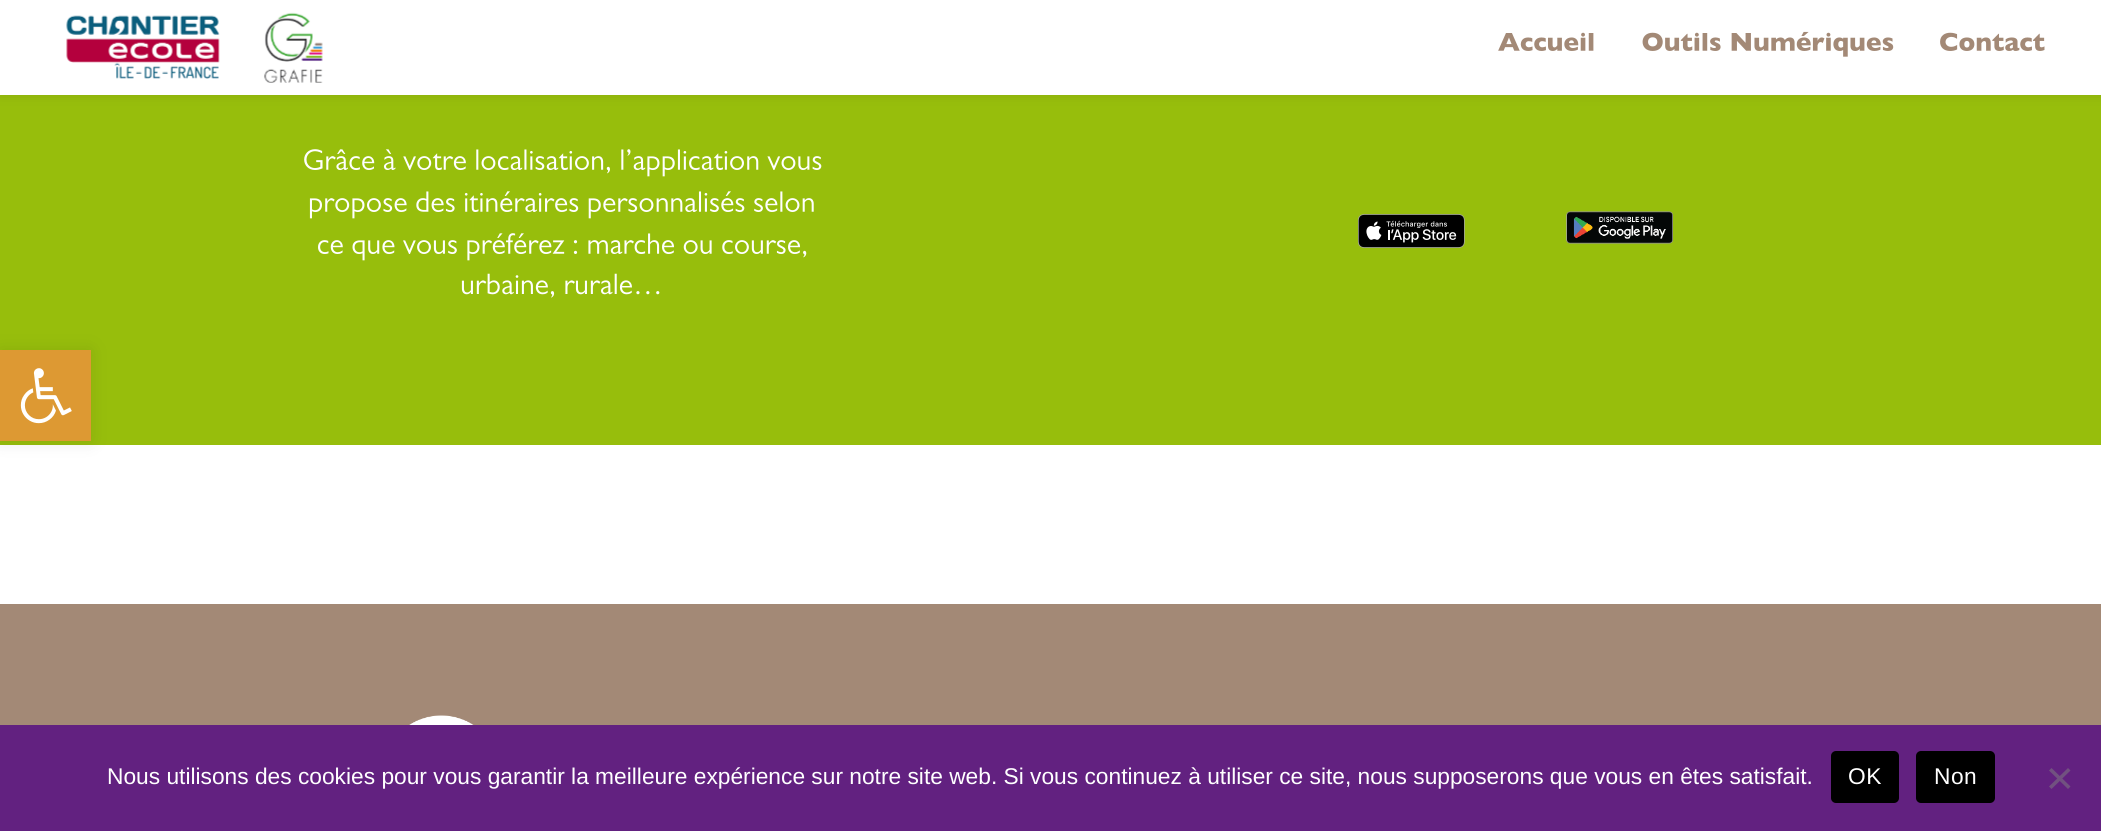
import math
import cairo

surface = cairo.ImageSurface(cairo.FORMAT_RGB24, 2101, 831)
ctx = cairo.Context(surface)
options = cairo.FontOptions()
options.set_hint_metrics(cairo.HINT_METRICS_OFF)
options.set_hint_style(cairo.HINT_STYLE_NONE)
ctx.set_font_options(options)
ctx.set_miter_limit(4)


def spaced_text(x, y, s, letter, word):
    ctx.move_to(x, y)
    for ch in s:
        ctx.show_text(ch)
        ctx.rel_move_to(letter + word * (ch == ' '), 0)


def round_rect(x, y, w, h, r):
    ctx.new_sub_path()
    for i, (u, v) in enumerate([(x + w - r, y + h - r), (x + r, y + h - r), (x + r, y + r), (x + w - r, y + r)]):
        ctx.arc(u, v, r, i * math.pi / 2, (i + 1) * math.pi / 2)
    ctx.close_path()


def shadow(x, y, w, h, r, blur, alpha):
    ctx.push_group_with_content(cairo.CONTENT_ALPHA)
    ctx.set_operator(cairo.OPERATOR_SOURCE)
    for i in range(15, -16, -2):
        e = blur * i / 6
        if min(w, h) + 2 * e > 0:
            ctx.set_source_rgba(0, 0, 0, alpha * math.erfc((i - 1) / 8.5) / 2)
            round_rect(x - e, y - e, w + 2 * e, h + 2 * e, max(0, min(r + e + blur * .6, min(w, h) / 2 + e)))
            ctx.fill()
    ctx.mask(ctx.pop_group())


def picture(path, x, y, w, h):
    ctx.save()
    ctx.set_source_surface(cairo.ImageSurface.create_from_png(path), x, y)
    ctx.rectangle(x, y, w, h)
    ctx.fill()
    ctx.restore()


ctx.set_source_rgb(1, 1, 1)
ctx.paint()
ctx.set_source_rgb(0.592, 0.745, 0.047)
ctx.rectangle(0, 95, 2101, 350)
ctx.fill()
ctx.set_source_rgb(0, 0, 0)
shadow(0, 0, 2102, 95, 0, 6, 0.1)
ctx.set_source_rgb(1, 1, 1)
ctx.rectangle(0, 0, 2101, 95)
ctx.fill()
picture("img1.png", 66, 12, 257, 71)
picture("img2.png", 1498, 32, 96, 19)
picture("img3.png", 1642, 31, 252, 26)
picture("img4.png", 1940, 32, 105, 19)
picture("img5.png", 304, 149, 518, 28)
picture("img6.png", 309, 191, 505, 28)
picture("img7.png", 318, 233, 489, 28)
picture("img8.png", 461, 273, 199, 25)
picture("img9.png", 1358, 214, 107, 34)
picture("img10.png", 1566, 211, 107, 33)
ctx.set_source_rgb(0.639, 0.537, 0.463)
ctx.rectangle(0, 604, 2101, 121)
ctx.fill()
picture("img11.png", 409, 715, 65, 10)
ctx.set_source_rgb(0, 0, 0)
shadow(0, 350, 91, 91, 0, 9, 0.1)
ctx.set_source_rgb(0.867, 0.6, 0.2)
ctx.rectangle(0, 350, 91, 91)
ctx.fill()
picture("img12.png", 20, 368, 52, 56)
ctx.set_source_rgb(0.384, 0.129, 0.502)
ctx.rectangle(0, 725, 2101, 106)
ctx.fill()
ctx.select_font_face("Liberation Sans")
ctx.set_font_size(22.75)
ctx.set_source_rgb(1, 1, 1)
ctx.move_to(107, 784)
ctx.show_text("Nous utilisons des cookies pour vous garantir la meilleure expérience sur notre site web. Si vous continuez à utiliser ce site, nous supposerons que vous en êtes satisfait.")
ctx.set_source_rgb(0, 0, 0)
round_rect(1831, 751, 68, 52, 5)
ctx.fill()
ctx.set_source_rgb(1, 1, 1)
spaced_text(1848, 784, "OK", 0.5, 0)
ctx.set_source_rgb(0, 0, 0)
round_rect(1916, 751, 79, 52, 5)
ctx.fill()
ctx.set_source_rgb(1, 1, 1)
spaced_text(1934, 784, "Non", 0.5, 0)
ctx.set_source_rgb(0.443, 0.318, 0.502)
ctx.new_path()
ctx.move_to(2068, 768)
ctx.line_to(2070.5, 770.5)
ctx.line_to(2051.5, 789)
ctx.line_to(2049, 786.5)
ctx.close_path()
ctx.fill()
ctx.new_path()
ctx.move_to(2049, 770.5)
ctx.line_to(2051.5, 768)
ctx.line_to(2070.5, 786.5)
ctx.line_to(2068, 789)
ctx.close_path()
ctx.fill()
surface.write_to_png("page.png")
